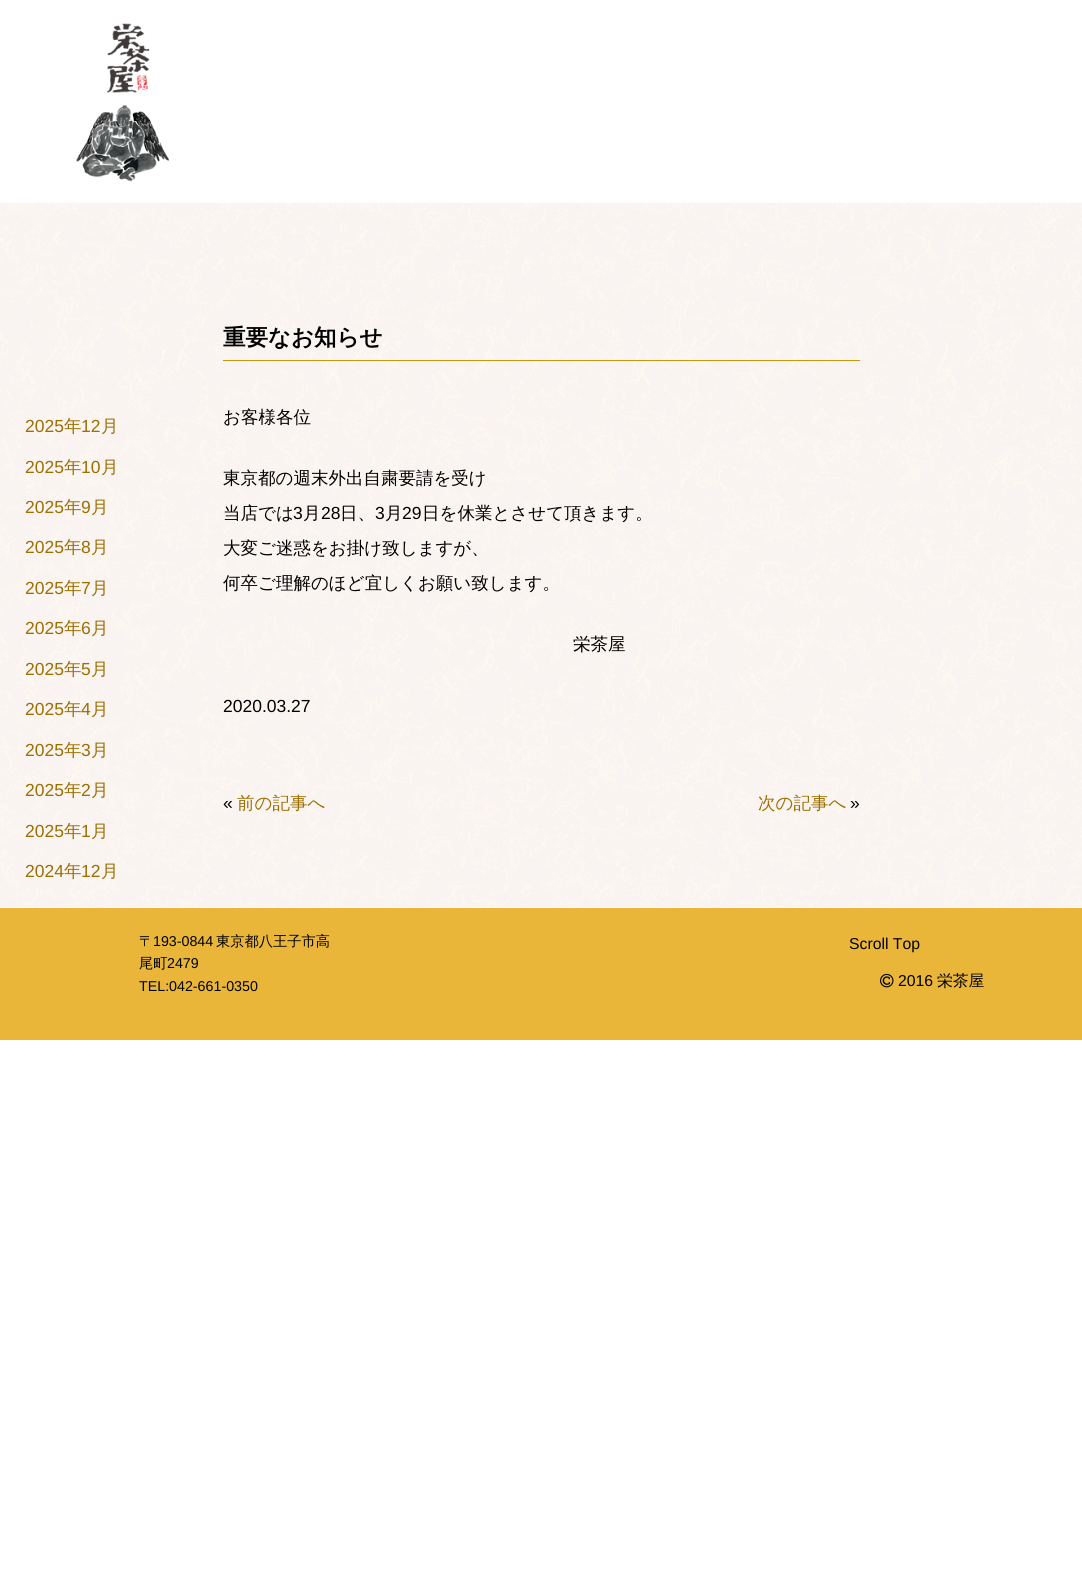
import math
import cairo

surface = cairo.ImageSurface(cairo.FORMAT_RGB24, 1082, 1571)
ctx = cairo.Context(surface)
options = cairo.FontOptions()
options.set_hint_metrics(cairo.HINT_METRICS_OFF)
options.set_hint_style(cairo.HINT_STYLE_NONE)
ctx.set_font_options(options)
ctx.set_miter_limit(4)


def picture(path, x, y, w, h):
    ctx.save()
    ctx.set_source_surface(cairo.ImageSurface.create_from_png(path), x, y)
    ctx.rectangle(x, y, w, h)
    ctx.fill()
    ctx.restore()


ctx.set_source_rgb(1, 1, 1)
ctx.paint()
picture("img1.png", 76, 23, 93, 159)
picture("img2.png", 0, 202, 1082, 706)
ctx.select_font_face("Liberation Sans")
ctx.set_font_size(17.5)
ctx.set_source_rgb(0.616, 0.435, 0.004)
ctx.move_to(25, 432)
ctx.show_text("2025")
ctx.select_font_face("WenQuanYi Zen Hei Medium")
ctx.move_to(64, 432)
ctx.show_text("年")
ctx.select_font_face("Liberation Sans")
ctx.move_to(81, 432)
ctx.show_text("12")
ctx.select_font_face("WenQuanYi Zen Hei Medium")
ctx.move_to(101, 432)
ctx.show_text("月")
ctx.select_font_face("Liberation Sans")
ctx.move_to(25, 473)
ctx.show_text("2025")
ctx.select_font_face("WenQuanYi Zen Hei Medium")
ctx.move_to(64, 473)
ctx.show_text("年")
ctx.select_font_face("Liberation Sans")
ctx.move_to(81, 473)
ctx.show_text("10")
ctx.select_font_face("WenQuanYi Zen Hei Medium")
ctx.move_to(101, 473)
ctx.show_text("月")
ctx.select_font_face("Liberation Sans")
ctx.move_to(25, 513)
ctx.show_text("2025")
ctx.select_font_face("WenQuanYi Zen Hei Medium")
ctx.move_to(64, 513)
ctx.show_text("年")
ctx.select_font_face("Liberation Sans")
ctx.move_to(81, 513)
ctx.show_text("9")
ctx.select_font_face("WenQuanYi Zen Hei Medium")
ctx.move_to(91, 513)
ctx.show_text("月")
ctx.select_font_face("Liberation Sans")
ctx.move_to(25, 553)
ctx.show_text("2025")
ctx.select_font_face("WenQuanYi Zen Hei Medium")
ctx.move_to(64, 553)
ctx.show_text("年")
ctx.select_font_face("Liberation Sans")
ctx.move_to(81, 553)
ctx.show_text("8")
ctx.select_font_face("WenQuanYi Zen Hei Medium")
ctx.move_to(91, 553)
ctx.show_text("月")
ctx.select_font_face("Liberation Sans")
ctx.move_to(25, 594)
ctx.show_text("2025")
ctx.select_font_face("WenQuanYi Zen Hei Medium")
ctx.move_to(64, 594)
ctx.show_text("年")
ctx.select_font_face("Liberation Sans")
ctx.move_to(81, 594)
ctx.show_text("7")
ctx.select_font_face("WenQuanYi Zen Hei Medium")
ctx.move_to(91, 594)
ctx.show_text("月")
ctx.select_font_face("Liberation Sans")
ctx.move_to(25, 634)
ctx.show_text("2025")
ctx.select_font_face("WenQuanYi Zen Hei Medium")
ctx.move_to(64, 634)
ctx.show_text("年")
ctx.select_font_face("Liberation Sans")
ctx.move_to(81, 634)
ctx.show_text("6")
ctx.select_font_face("WenQuanYi Zen Hei Medium")
ctx.move_to(91, 634)
ctx.show_text("月")
ctx.select_font_face("Liberation Sans")
ctx.move_to(25, 675)
ctx.show_text("2025")
ctx.select_font_face("WenQuanYi Zen Hei Medium")
ctx.move_to(64, 675)
ctx.show_text("年")
ctx.select_font_face("Liberation Sans")
ctx.move_to(81, 675)
ctx.show_text("5")
ctx.select_font_face("WenQuanYi Zen Hei Medium")
ctx.move_to(91, 675)
ctx.show_text("月")
ctx.select_font_face("Liberation Sans")
ctx.move_to(25, 715)
ctx.show_text("2025")
ctx.select_font_face("WenQuanYi Zen Hei Medium")
ctx.move_to(64, 715)
ctx.show_text("年")
ctx.select_font_face("Liberation Sans")
ctx.move_to(81, 715)
ctx.show_text("4")
ctx.select_font_face("WenQuanYi Zen Hei Medium")
ctx.move_to(91, 715)
ctx.show_text("月")
ctx.select_font_face("Liberation Sans")
ctx.move_to(25, 756)
ctx.show_text("2025")
ctx.select_font_face("WenQuanYi Zen Hei Medium")
ctx.move_to(64, 756)
ctx.show_text("年")
ctx.select_font_face("Liberation Sans")
ctx.move_to(81, 756)
ctx.show_text("3")
ctx.select_font_face("WenQuanYi Zen Hei Medium")
ctx.move_to(91, 756)
ctx.show_text("月")
ctx.select_font_face("Liberation Sans")
ctx.move_to(25, 796)
ctx.show_text("2025")
ctx.select_font_face("WenQuanYi Zen Hei Medium")
ctx.move_to(64, 796)
ctx.show_text("年")
ctx.select_font_face("Liberation Sans")
ctx.move_to(81, 796)
ctx.show_text("2")
ctx.select_font_face("WenQuanYi Zen Hei Medium")
ctx.move_to(91, 796)
ctx.show_text("月")
ctx.select_font_face("Liberation Sans")
ctx.move_to(25, 837)
ctx.show_text("2025")
ctx.select_font_face("WenQuanYi Zen Hei Medium")
ctx.move_to(64, 837)
ctx.show_text("年")
ctx.select_font_face("Liberation Sans")
ctx.move_to(81, 837)
ctx.show_text("1")
ctx.select_font_face("WenQuanYi Zen Hei Medium")
ctx.move_to(91, 837)
ctx.show_text("月")
ctx.select_font_face("Liberation Sans")
ctx.move_to(25, 877)
ctx.show_text("2024")
ctx.select_font_face("WenQuanYi Zen Hei Medium")
ctx.move_to(64, 877)
ctx.show_text("年")
ctx.select_font_face("Liberation Sans")
ctx.move_to(81, 877)
ctx.show_text("12")
ctx.select_font_face("WenQuanYi Zen Hei Medium")
ctx.move_to(101, 877)
ctx.show_text("月")
ctx.set_source_rgb(0.788, 0.592, 0.063)
ctx.rectangle(223, 360, 637, 1)
ctx.fill()
ctx.select_font_face("WenQuanYi Zen Hei", cairo.FONT_SLANT_NORMAL, cairo.FONT_WEIGHT_BOLD)
ctx.set_font_size(22.5)
ctx.set_source_rgb(0, 0, 0)
ctx.move_to(223, 345)
ctx.show_text("重要なお知らせ")
ctx.select_font_face("WenQuanYi Zen Hei Medium")
ctx.set_font_size(17.5)
ctx.move_to(223, 423)
ctx.show_text("お客様各位")
ctx.move_to(223, 484)
ctx.show_text("東京都の週末外出自粛要請を受け")
ctx.move_to(223, 519)
ctx.show_text("当店では")
ctx.select_font_face("Liberation Sans")
ctx.move_to(293, 519)
ctx.show_text("3")
ctx.select_font_face("WenQuanYi Zen Hei Medium")
ctx.move_to(303, 519)
ctx.show_text("月")
ctx.select_font_face("Liberation Sans")
ctx.move_to(321, 519)
ctx.show_text("28")
ctx.select_font_face("WenQuanYi Zen Hei Medium")
ctx.move_to(340, 519)
ctx.show_text("日、")
ctx.select_font_face("Liberation Sans")
ctx.move_to(375, 519)
ctx.show_text("3")
ctx.select_font_face("WenQuanYi Zen Hei Medium")
ctx.move_to(385, 519)
ctx.show_text("月")
ctx.select_font_face("Liberation Sans")
ctx.move_to(402, 519)
ctx.show_text("29")
ctx.select_font_face("WenQuanYi Zen Hei Medium")
ctx.move_to(422, 519)
ctx.show_text("日を休業とさせて頂きます。")
ctx.move_to(223, 554)
ctx.show_text("大変ご迷惑をお掛け致しますが、")
ctx.move_to(223, 589)
ctx.show_text("何卒ご理解のほど宜しくお願い致します。")
ctx.move_to(573, 650)
ctx.show_text("栄茶屋")
ctx.select_font_face("Liberation Sans")
ctx.move_to(223, 712)
ctx.show_text("2020.03.27")
ctx.move_to(223, 809)
ctx.show_text("«")
ctx.select_font_face("WenQuanYi Zen Hei Medium")
ctx.set_source_rgb(0.616, 0.435, 0.004)
ctx.move_to(237, 809)
ctx.show_text("前の記事へ")
ctx.move_to(758, 809)
ctx.show_text("次の記事へ")
ctx.select_font_face("Liberation Sans")
ctx.set_source_rgb(0, 0, 0)
ctx.move_to(850, 809)
ctx.show_text("»")
ctx.set_source_rgb(0.914, 0.714, 0.227)
ctx.rectangle(0, 908, 1082, 132)
ctx.fill()
ctx.select_font_face("WenQuanYi Zen Hei Medium")
ctx.set_font_size(14.25)
ctx.set_source_rgb(0, 0, 0)
ctx.move_to(139, 946)
ctx.show_text("〒")
ctx.select_font_face("Liberation Sans")
ctx.move_to(153, 946)
ctx.show_text("193-0844")
ctx.select_font_face("WenQuanYi Zen Hei Medium")
ctx.move_to(216, 946)
ctx.show_text("東京都八王子市高")
ctx.move_to(139, 968)
ctx.show_text("尾町")
ctx.select_font_face("Liberation Sans")
ctx.move_to(167, 968)
ctx.show_text("2479")
ctx.move_to(139, 991)
ctx.show_text("TEL:042-661-0350")
ctx.set_font_size(15.75)
ctx.move_to(849, 949)
ctx.show_text("Scroll Top")
picture("img3.png", 880, 973, 14, 15)
ctx.move_to(898, 986)
ctx.show_text("2016")
ctx.select_font_face("WenQuanYi Zen Hei Medium")
ctx.move_to(937, 986)
ctx.show_text("栄茶屋")
surface.write_to_png("page.png")
